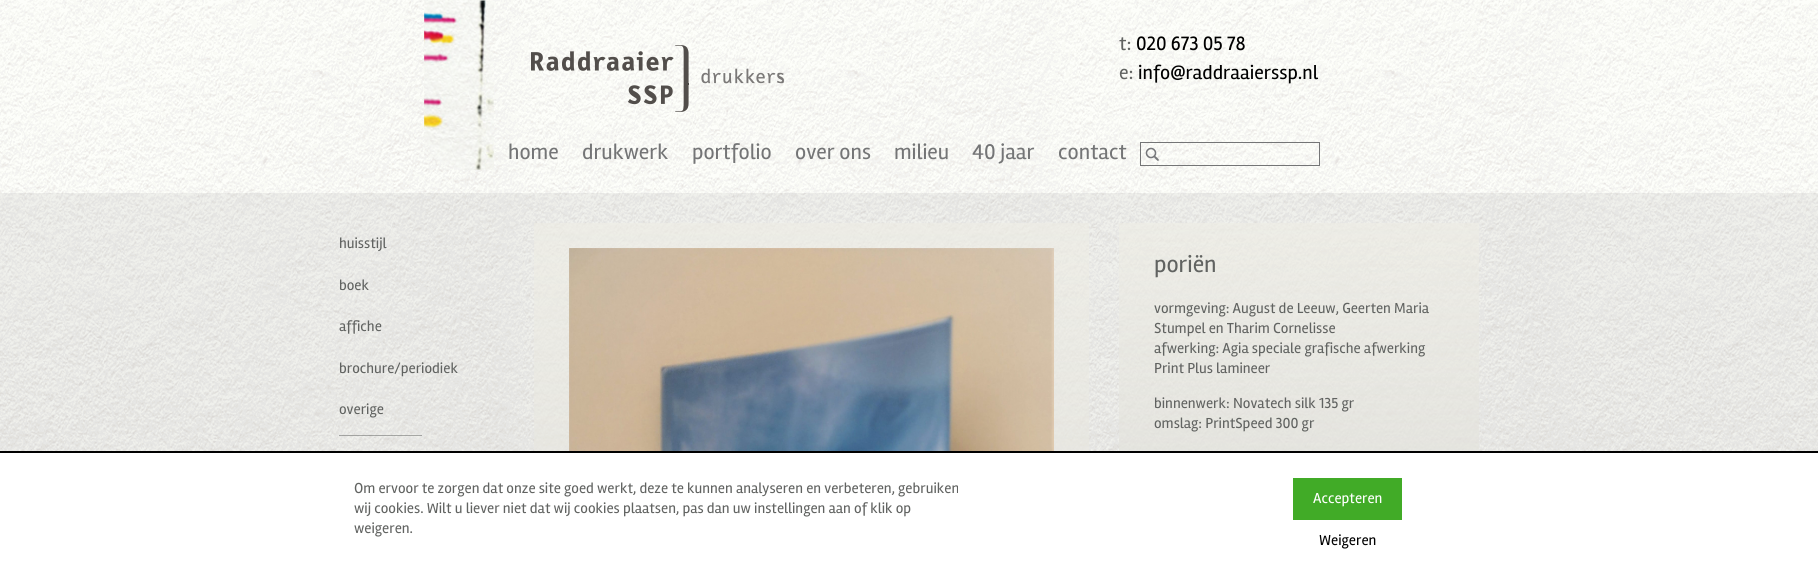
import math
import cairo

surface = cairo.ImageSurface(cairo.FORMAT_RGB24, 1818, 576)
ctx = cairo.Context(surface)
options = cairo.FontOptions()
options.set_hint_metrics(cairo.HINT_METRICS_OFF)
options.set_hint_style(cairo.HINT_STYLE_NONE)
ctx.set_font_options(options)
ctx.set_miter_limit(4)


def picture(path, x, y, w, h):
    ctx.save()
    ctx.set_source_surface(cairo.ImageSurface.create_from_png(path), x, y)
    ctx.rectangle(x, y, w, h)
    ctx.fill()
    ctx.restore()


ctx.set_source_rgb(1, 1, 1)
ctx.paint()
picture("img1.png", 0, 0, 1818, 451)
picture("img2.png", 424, 0, 70, 170)
picture("img3.png", 531, 45, 253, 67)
ctx.select_font_face("Rambla")
ctx.set_font_size(20)
ctx.set_source_rgb(0.38, 0.388, 0.38)
ctx.move_to(1119, 50)
ctx.show_text("t:")
ctx.set_source_rgb(0, 0, 0)
ctx.move_to(1136, 50)
ctx.show_text("020 673 05 78")
ctx.set_source_rgb(0.38, 0.388, 0.38)
ctx.move_to(1119, 79)
ctx.show_text("e:")
ctx.set_source_rgb(0, 0, 0)
ctx.move_to(1138, 79)
ctx.show_text("info@raddraaierssp.nl")
ctx.set_font_size(22)
ctx.set_source_rgb(0.455, 0.459, 0.463)
ctx.move_to(508, 159)
ctx.show_text("home")
ctx.move_to(582, 159)
ctx.show_text("drukwerk")
ctx.move_to(692, 159)
ctx.show_text("portfolio")
ctx.move_to(795, 159)
ctx.show_text("over ons")
ctx.move_to(894, 159)
ctx.show_text("milieu")
ctx.move_to(972, 159)
ctx.show_text("40 jaar")
ctx.move_to(1058, 159)
ctx.show_text("contact")
ctx.rectangle(1140.5, 142.5, 179, 23)
ctx.set_line_width(1)
ctx.stroke()
picture("img4.png", 1145, 147, 14, 14)
ctx.set_source_rgba(0.455, 0.459, 0.463, 0.1)
ctx.rectangle(0, 193, 1818, 258)
ctx.fill()
ctx.set_font_size(15)
ctx.set_source_rgb(0.38, 0.388, 0.38)
ctx.move_to(339, 248)
ctx.show_text("huisstijl")
ctx.move_to(339, 290)
ctx.show_text("boek")
ctx.move_to(339, 331)
ctx.show_text("affiche")
ctx.move_to(339, 373)
ctx.show_text("brochure/periodiek")
ctx.move_to(339, 414)
ctx.show_text("overige")
ctx.set_source_rgba(0.38, 0.388, 0.38, 0.5)
ctx.rectangle(339, 435, 83, 1)
ctx.fill()
gradient = cairo.LinearGradient(812, 223, 812, 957)
gradient.add_color_stop_rgba(0, 0.933, 0.929, 0.898, 0.65)
gradient.add_color_stop_rgba(1, 0.855, 0.855, 0.839, 0.85)
ctx.set_source(gradient)
ctx.rectangle(534, 223, 555, 228)
ctx.fill()
picture("img5.png", 569, 248, 485, 203)
gradient = cairo.LinearGradient(1299, 223, 1299, 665)
gradient.add_color_stop_rgba(0, 0.933, 0.929, 0.898, 0.65)
gradient.add_color_stop_rgba(1, 0.855, 0.855, 0.839, 0.85)
ctx.set_source(gradient)
ctx.rectangle(1119, 223, 360, 228)
ctx.fill()
ctx.set_font_size(24)
ctx.set_source_rgb(0.38, 0.388, 0.38)
ctx.move_to(1154, 272)
ctx.show_text("poriën")
ctx.set_font_size(15)
ctx.move_to(1154, 313)
ctx.show_text("vormgeving: August de Leeuw, Geerten Maria")
ctx.move_to(1154, 333)
ctx.show_text("Stumpel en Tharim Cornelisse")
ctx.move_to(1154, 353)
ctx.show_text("afwerking: Agia speciale grafische afwerking")
ctx.move_to(1154, 373)
ctx.show_text("Print Plus lamineer")
ctx.move_to(1154, 408)
ctx.show_text("binnenwerk: Novatech silk 135 gr")
ctx.move_to(1154, 428)
ctx.show_text("omslag: PrintSpeed 300 gr")
ctx.set_source_rgb(0, 0, 0)
ctx.rectangle(0, 451, 1818, 2)
ctx.fill()
ctx.set_source_rgb(0.38, 0.388, 0.38)
ctx.move_to(354, 493)
ctx.show_text("Om ervoor te zorgen dat onze site goed werkt, deze te kunnen analyseren en verbeteren, gebruiken")
ctx.move_to(354, 513)
ctx.show_text("wij cookies. Wilt u liever niet dat wij cookies plaatsen, pas dan uw instellingen aan of klik op")
ctx.move_to(354, 533)
ctx.show_text("weigeren.")
ctx.set_source_rgb(0.255, 0.671, 0.153)
ctx.rectangle(1293, 478, 109, 42)
ctx.fill()
ctx.set_source_rgb(1, 1, 1)
ctx.move_to(1313, 503)
ctx.show_text("Accepteren")
ctx.set_source_rgb(0, 0, 0)
ctx.move_to(1319, 545)
ctx.show_text("Weigeren")
surface.write_to_png("page.png")
